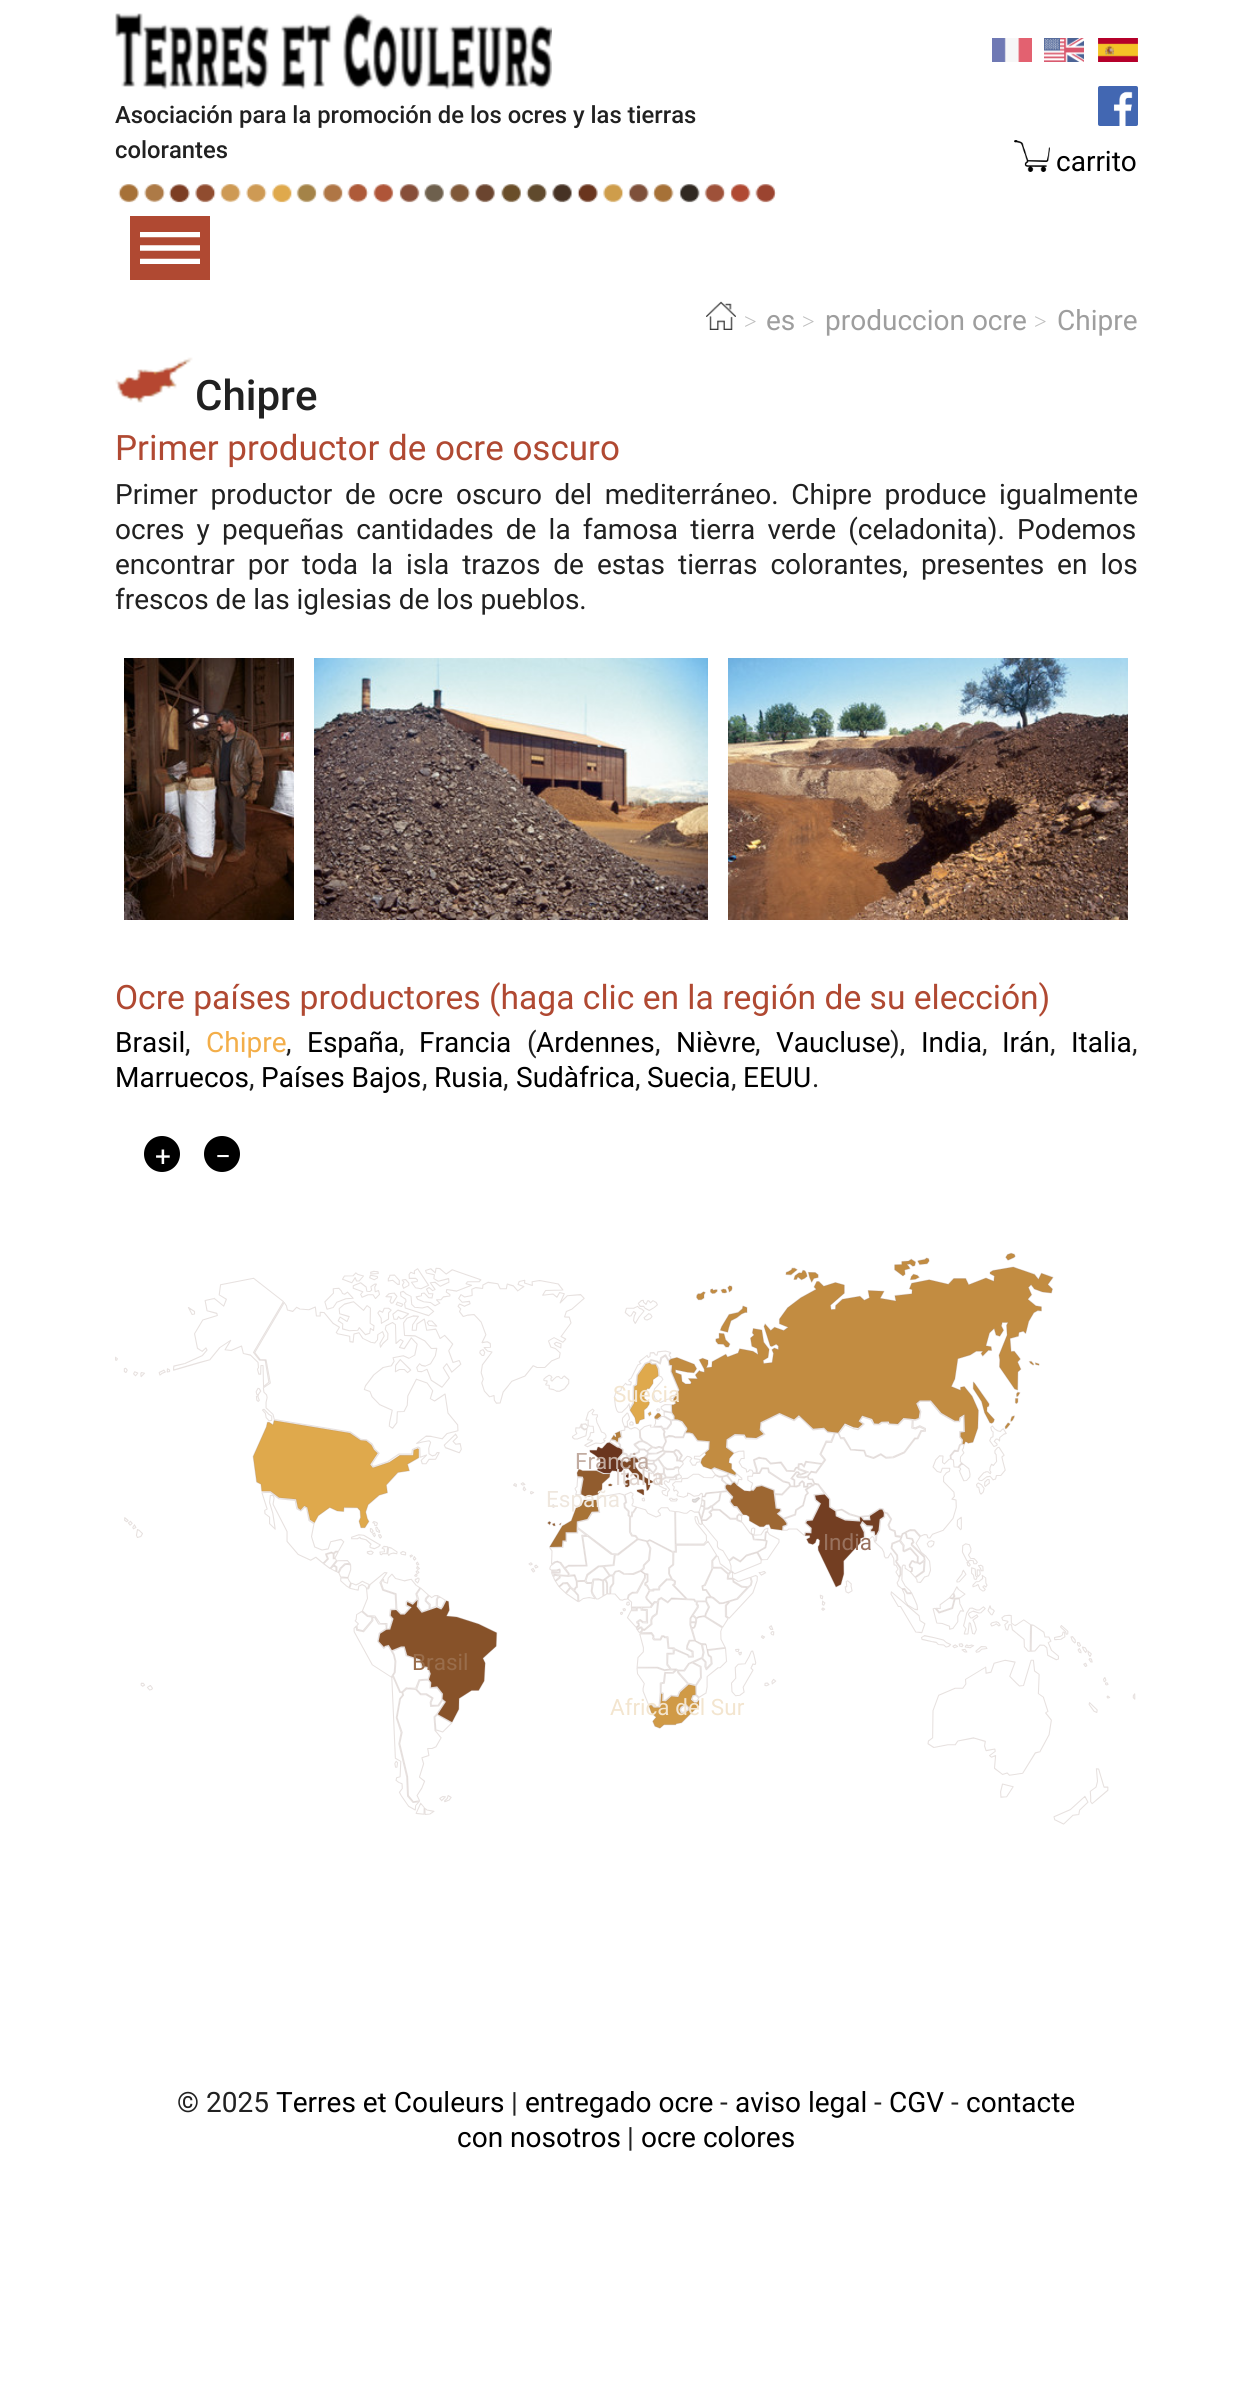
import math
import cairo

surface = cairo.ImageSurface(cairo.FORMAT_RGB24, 1251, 2406)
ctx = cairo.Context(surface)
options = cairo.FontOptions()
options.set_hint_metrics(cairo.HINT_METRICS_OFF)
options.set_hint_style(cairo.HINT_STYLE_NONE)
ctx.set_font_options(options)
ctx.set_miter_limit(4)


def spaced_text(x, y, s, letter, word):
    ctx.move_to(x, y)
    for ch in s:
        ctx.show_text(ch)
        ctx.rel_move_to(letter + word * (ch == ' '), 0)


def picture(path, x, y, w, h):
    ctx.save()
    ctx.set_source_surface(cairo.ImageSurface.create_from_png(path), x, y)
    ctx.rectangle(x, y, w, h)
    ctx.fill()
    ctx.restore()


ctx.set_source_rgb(1, 1, 1)
ctx.paint()
picture("img1.png", 115, 13, 437, 77)
ctx.select_font_face("Roboto Medium")
ctx.set_font_size(23.8)
ctx.set_source_rgb(0.129, 0.129, 0.129)
ctx.move_to(115, 123)
ctx.show_text("Asociación para la promoción de los ocres y las tierras")
ctx.move_to(115, 158)
ctx.show_text("colorantes")
picture("img2.png", 118, 184, 659, 19)
picture("img3.png", 992, 38, 40, 24)
picture("img4.png", 1044, 38, 40, 24)
picture("img5.png", 1098, 38, 40, 24)
picture("img6.png", 1098, 86, 40, 40)
picture("img7.png", 1014, 140, 36, 32)
ctx.select_font_face("Roboto")
ctx.set_font_size(28)
ctx.set_source_rgb(0, 0, 0)
ctx.move_to(1056, 171)
ctx.show_text("carrito")
ctx.set_source_rgb(0.69, 0.286, 0.196)
ctx.rectangle(130, 216, 80, 64)
ctx.fill()
picture("img8.png", 140, 232, 60, 32)
picture("img9.png", 706, 301, 30, 29)
ctx.select_font_face("Liberation Serif")
ctx.set_font_size(22.5)
ctx.set_source_rgb(0.741, 0.741, 0.741)
ctx.move_to(744, 329)
ctx.show_text(">")
ctx.select_font_face("Roboto")
ctx.set_font_size(28)
ctx.set_source_rgb(0.62, 0.62, 0.62)
ctx.move_to(766, 330)
ctx.show_text("es")
ctx.select_font_face("Liberation Serif")
ctx.set_font_size(22.5)
ctx.set_source_rgb(0.741, 0.741, 0.741)
ctx.move_to(802, 329)
ctx.show_text(">")
ctx.select_font_face("Roboto")
ctx.set_font_size(28)
ctx.set_source_rgb(0.62, 0.62, 0.62)
ctx.move_to(825, 330)
ctx.show_text("produccion ocre")
ctx.select_font_face("Liberation Serif")
ctx.set_font_size(22.5)
ctx.set_source_rgb(0.741, 0.741, 0.741)
ctx.move_to(1034, 329)
ctx.show_text(">")
ctx.select_font_face("Roboto")
ctx.set_font_size(28)
ctx.set_source_rgb(0.62, 0.62, 0.62)
ctx.move_to(1057, 330)
ctx.show_text("Chipre")
picture("img10.png", 115, 357, 78, 46)
ctx.select_font_face("Roboto Medium")
ctx.set_font_size(42)
ctx.set_source_rgb(0.129, 0.129, 0.129)
ctx.move_to(195, 410)
ctx.show_text("Chipre")
ctx.select_font_face("Roboto")
ctx.set_font_size(35)
ctx.set_source_rgb(0.69, 0.286, 0.196)
ctx.move_to(115, 460)
ctx.show_text("Primer productor de ocre oscuro")
ctx.set_font_size(28)
ctx.set_source_rgb(0.129, 0.129, 0.129)
spaced_text(115, 504, "Primer productor de ocre oscuro del mediterráneo. Chipre produce igualmente", 0, 5.75)
spaced_text(115, 539, "ocres y pequeñas cantidades de la famosa tierra verde (celadonita). Podemos", 0, 5.25)
spaced_text(115, 574, "encontrar por toda la isla trazos de estas tierras colorantes, presentes en los", 0, 6)
ctx.move_to(115, 609)
ctx.show_text("frescos de las iglesias de los pueblos.")
picture("img11.png", 124, 658, 170, 262)
picture("img12.png", 314, 658, 394, 262)
picture("img13.png", 728, 658, 400, 262)
ctx.set_font_size(33.6)
ctx.set_source_rgb(0.69, 0.286, 0.196)
ctx.move_to(115, 1009)
ctx.show_text("Ocre países productores (haga clic en la región de su elección)")
ctx.set_font_size(28)
ctx.set_source_rgb(0, 0, 0)
ctx.move_to(115, 1052)
ctx.show_text("Brasil")
ctx.set_source_rgb(0.129, 0.129, 0.129)
ctx.move_to(185, 1052)
ctx.show_text(",")
ctx.set_source_rgb(0.953, 0.682, 0.286)
ctx.move_to(206, 1052)
ctx.show_text("Chipre")
ctx.set_source_rgb(0.129, 0.129, 0.129)
ctx.move_to(286, 1052)
ctx.show_text(",")
ctx.set_source_rgb(0, 0, 0)
ctx.move_to(307, 1052)
ctx.show_text("España")
ctx.set_source_rgb(0.129, 0.129, 0.129)
ctx.move_to(399, 1052)
ctx.show_text(",")
ctx.set_source_rgb(0, 0, 0)
ctx.move_to(419, 1052)
ctx.show_text("Francia")
ctx.set_source_rgb(0.129, 0.129, 0.129)
ctx.move_to(527, 1052)
ctx.show_text("(")
ctx.set_source_rgb(0, 0, 0)
ctx.move_to(536, 1052)
ctx.show_text("Ardennes")
ctx.set_source_rgb(0.129, 0.129, 0.129)
ctx.move_to(655, 1052)
ctx.show_text(",")
ctx.set_source_rgb(0, 0, 0)
ctx.move_to(676, 1052)
ctx.show_text("Nièvre")
ctx.set_source_rgb(0.129, 0.129, 0.129)
ctx.move_to(755, 1052)
ctx.show_text(",")
ctx.set_source_rgb(0, 0, 0)
ctx.move_to(776, 1052)
ctx.show_text("Vaucluse")
ctx.set_source_rgb(0.129, 0.129, 0.129)
ctx.move_to(890, 1052)
ctx.show_text("),")
ctx.set_source_rgb(0, 0, 0)
ctx.move_to(921, 1052)
ctx.show_text("India")
ctx.set_source_rgb(0.129, 0.129, 0.129)
ctx.move_to(982, 1052)
ctx.show_text(",")
ctx.set_source_rgb(0, 0, 0)
ctx.move_to(1002, 1052)
ctx.show_text("Irán")
ctx.set_source_rgb(0.129, 0.129, 0.129)
ctx.move_to(1050, 1052)
ctx.show_text(",")
ctx.set_source_rgb(0, 0, 0)
ctx.move_to(1071, 1052)
ctx.show_text("Italia")
ctx.set_source_rgb(0.129, 0.129, 0.129)
ctx.move_to(1132, 1052)
ctx.show_text(",")
ctx.set_source_rgb(0, 0, 0)
ctx.move_to(115, 1087)
ctx.show_text("Marruecos")
ctx.set_source_rgb(0.129, 0.129, 0.129)
ctx.move_to(249, 1087)
ctx.show_text(",")
ctx.set_source_rgb(0, 0, 0)
ctx.move_to(261, 1087)
ctx.show_text("Países Bajos")
ctx.set_source_rgb(0.129, 0.129, 0.129)
ctx.move_to(422, 1087)
ctx.show_text(",")
ctx.set_source_rgb(0, 0, 0)
ctx.move_to(434, 1087)
ctx.show_text("Rusia")
ctx.set_source_rgb(0.129, 0.129, 0.129)
ctx.move_to(503, 1087)
ctx.show_text(",")
ctx.set_source_rgb(0, 0, 0)
ctx.move_to(516, 1087)
ctx.show_text("Sudàfrica")
ctx.set_source_rgb(0.129, 0.129, 0.129)
ctx.move_to(635, 1087)
ctx.show_text(",")
ctx.set_source_rgb(0, 0, 0)
ctx.move_to(647, 1087)
ctx.show_text("Suecia")
ctx.set_source_rgb(0.129, 0.129, 0.129)
ctx.move_to(731, 1087)
ctx.show_text(",")
ctx.set_source_rgb(0, 0, 0)
ctx.move_to(743, 1087)
ctx.show_text("EEUU")
ctx.set_source_rgb(0.129, 0.129, 0.129)
ctx.move_to(812, 1087)
ctx.show_text(".")
ctx.set_source_rgb(0, 0, 0)
ctx.new_path()
ctx.arc(162, 1154, 18, 0, 2 * math.pi)
ctx.fill()
ctx.set_source_rgb(1, 1, 1)
ctx.move_to(155, 1166)
ctx.show_text("+")
ctx.set_source_rgb(0, 0, 0)
ctx.new_path()
ctx.arc(222, 1154, 18, 0, 2 * math.pi)
ctx.fill()
ctx.set_source_rgb(1, 1, 1)
ctx.move_to(215, 1166)
ctx.show_text("−")
picture("img14.png", 115, 1252, 1021, 573)
ctx.set_font_size(22.5)
ctx.set_source_rgb(0.953, 0.898, 0.812)
ctx.move_to(613, 1402)
ctx.show_text("Suecia")
ctx.set_source_rgb(0.757, 0.671, 0.627)
ctx.move_to(575, 1469)
ctx.show_text("Francia")
ctx.set_source_rgb(0.882, 0.835, 0.812)
ctx.move_to(615, 1485)
ctx.show_text("Italia")
ctx.set_source_rgb(0.937, 0.906, 0.871)
ctx.move_to(546, 1507)
ctx.show_text("España")
ctx.set_source_rgb(0.6, 0.447, 0.369)
ctx.move_to(823, 1550)
ctx.show_text("India")
ctx.set_source_rgb(0.6, 0.427, 0.294)
ctx.move_to(412, 1670)
ctx.show_text("Brasil")
ctx.set_source_rgb(0.953, 0.898, 0.812)
ctx.move_to(610, 1715)
ctx.show_text("Africa del Sur")
ctx.set_font_size(28)
ctx.set_source_rgb(0.129, 0.129, 0.129)
ctx.move_to(177, 2112)
ctx.show_text("© 2025")
ctx.set_source_rgb(0, 0, 0)
ctx.move_to(276, 2112)
ctx.show_text("Terres et Couleurs")
ctx.set_source_rgb(0.129, 0.129, 0.129)
ctx.move_to(511, 2112)
ctx.show_text("|")
ctx.set_source_rgb(0, 0, 0)
ctx.move_to(525, 2112)
ctx.show_text("entregado ocre")
ctx.set_source_rgb(0.129, 0.129, 0.129)
ctx.move_to(720, 2112)
ctx.show_text("-")
ctx.set_source_rgb(0, 0, 0)
ctx.move_to(735, 2112)
ctx.show_text("aviso legal")
ctx.set_source_rgb(0.129, 0.129, 0.129)
ctx.move_to(874, 2112)
ctx.show_text("-")
ctx.set_source_rgb(0, 0, 0)
ctx.move_to(889, 2112)
ctx.show_text("CGV")
ctx.set_source_rgb(0.129, 0.129, 0.129)
ctx.move_to(951, 2112)
ctx.show_text("-")
ctx.set_source_rgb(0, 0, 0)
ctx.move_to(966, 2112)
ctx.show_text("contacte")
ctx.move_to(457, 2147)
ctx.show_text("con nosotros")
ctx.set_source_rgb(0.129, 0.129, 0.129)
ctx.move_to(627, 2147)
ctx.show_text("|")
ctx.set_source_rgb(0, 0, 0)
ctx.move_to(641, 2147)
ctx.show_text("ocre colores")
surface.write_to_png("page.png")
